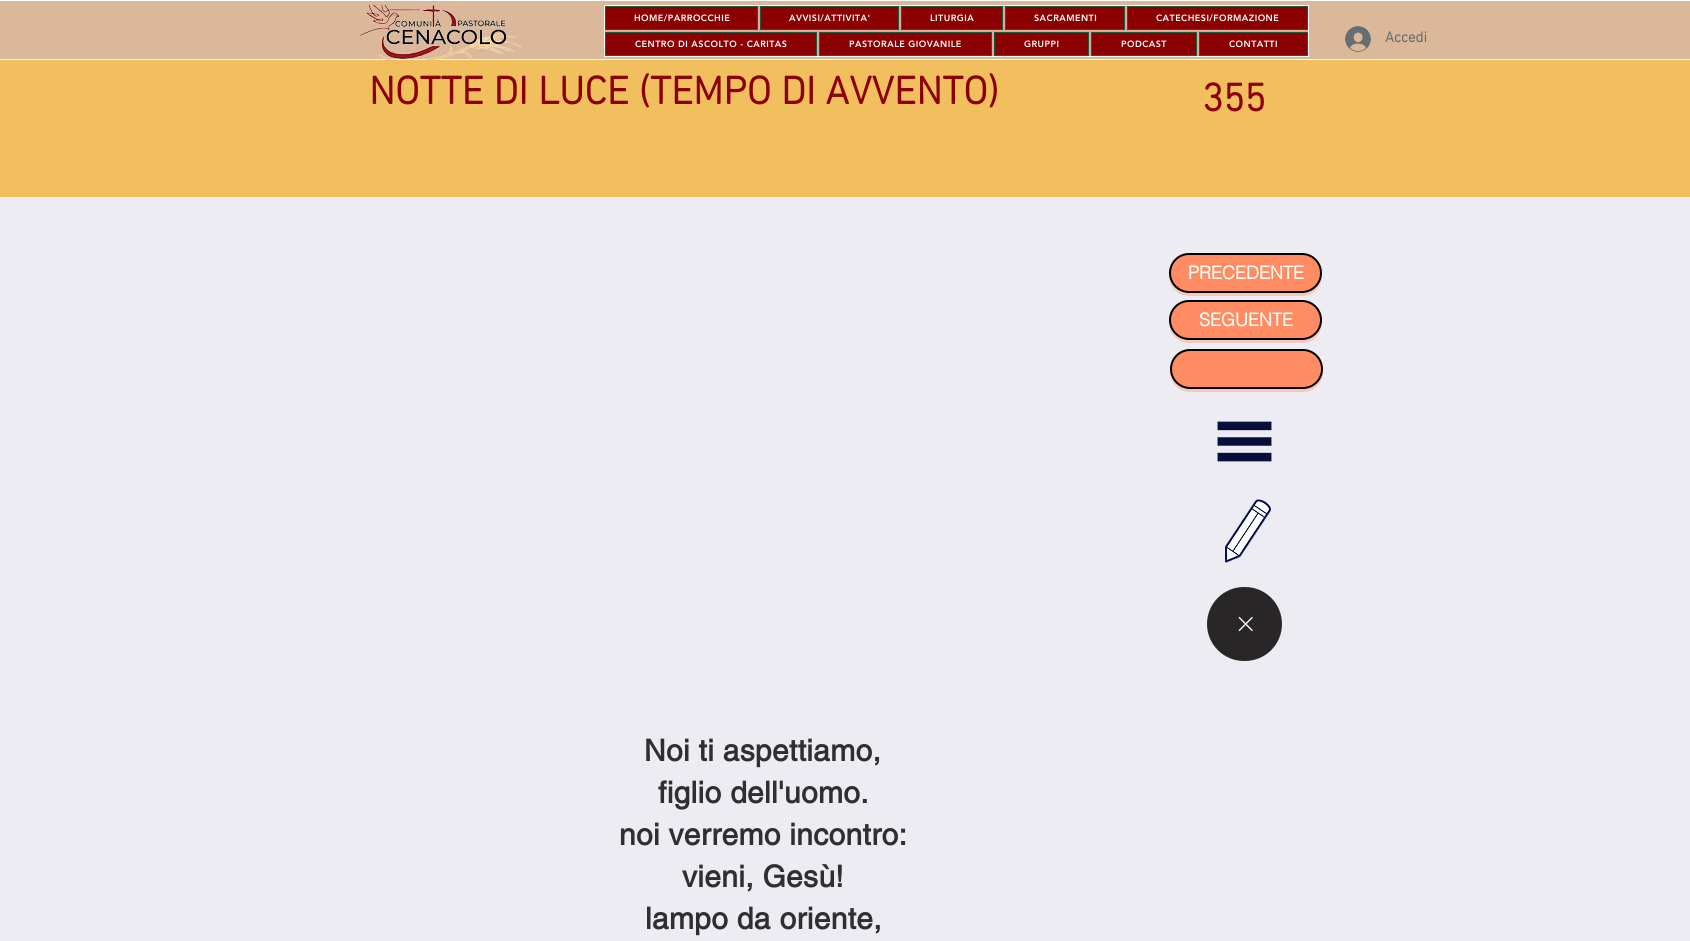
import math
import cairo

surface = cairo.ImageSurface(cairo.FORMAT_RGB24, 1690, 941)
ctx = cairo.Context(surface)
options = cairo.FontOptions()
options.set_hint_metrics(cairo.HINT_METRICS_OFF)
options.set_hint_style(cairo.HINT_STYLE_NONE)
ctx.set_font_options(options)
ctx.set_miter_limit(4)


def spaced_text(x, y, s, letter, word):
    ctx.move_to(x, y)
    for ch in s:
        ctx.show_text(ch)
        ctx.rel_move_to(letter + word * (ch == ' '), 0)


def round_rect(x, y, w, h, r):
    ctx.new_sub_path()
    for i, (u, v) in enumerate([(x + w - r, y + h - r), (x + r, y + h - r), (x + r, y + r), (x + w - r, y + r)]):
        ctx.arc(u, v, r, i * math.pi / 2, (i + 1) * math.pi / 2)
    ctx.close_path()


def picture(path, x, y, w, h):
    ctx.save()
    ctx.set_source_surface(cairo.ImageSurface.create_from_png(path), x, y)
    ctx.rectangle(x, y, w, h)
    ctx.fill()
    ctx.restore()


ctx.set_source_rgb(0.929, 0.922, 0.949)
ctx.paint()
ctx.set_source_rgb(1, 1, 1)
ctx.rectangle(0, 0, 1690, 1)
ctx.fill()
ctx.rectangle(0, 59, 1690, 1)
ctx.fill()
ctx.set_source_rgb(0.859, 0.722, 0.604)
ctx.rectangle(0, 1, 1690, 58)
ctx.fill()
picture("img1.png", 359, 5, 163, 55)
ctx.set_source_rgb(0.859, 0.671, 0.592)
ctx.rectangle(604.5, 5.5, 704, 51)
ctx.fill_preserve()
ctx.set_source_rgb(1, 1, 1)
ctx.set_line_width(1)
ctx.stroke()
ctx.set_source_rgb(0.545, 0, 0)
ctx.rectangle(605.5, 6.5, 152, 23)
ctx.fill_preserve()
ctx.set_source_rgb(0.106, 0.357, 0.247)
ctx.stroke()
ctx.select_font_face("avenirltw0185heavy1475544 Black")
ctx.set_font_size(9)
ctx.set_source_rgb(1, 1, 1)
spaced_text(634, 21, "HOME/PARROCCHIE", 0.45, 0)
ctx.set_source_rgb(0.545, 0, 0)
ctx.rectangle(760.5, 6.5, 138, 23)
ctx.fill_preserve()
ctx.set_source_rgb(0.106, 0.357, 0.247)
ctx.stroke()
ctx.set_source_rgb(1, 1, 1)
spaced_text(789, 21, "AVVISI/ATTIVITA'", 0.45, 0)
ctx.set_source_rgb(0.545, 0, 0)
ctx.rectangle(901.5, 6.5, 101, 23)
ctx.fill_preserve()
ctx.set_source_rgb(0.106, 0.357, 0.247)
ctx.stroke()
ctx.set_source_rgb(1, 1, 1)
spaced_text(930, 21, "LITURGIA", 0.45, 0)
ctx.set_source_rgb(0.545, 0, 0)
ctx.rectangle(1005.5, 6.5, 119, 23)
ctx.fill_preserve()
ctx.set_source_rgb(0.106, 0.357, 0.247)
ctx.stroke()
ctx.set_source_rgb(1, 1, 1)
spaced_text(1034, 21, "SACRAMENTI", 0.45, 0)
ctx.set_source_rgb(0.545, 0, 0)
ctx.rectangle(1127.5, 6.5, 180, 23)
ctx.fill_preserve()
ctx.set_source_rgb(0.106, 0.357, 0.247)
ctx.stroke()
ctx.set_source_rgb(1, 1, 1)
spaced_text(1156, 21, "CATECHESI/FORMAZIONE", 0.45, 0)
ctx.set_source_rgb(0.545, 0, 0)
ctx.rectangle(605.5, 32.5, 211, 23)
ctx.fill_preserve()
ctx.set_source_rgb(0.106, 0.357, 0.247)
ctx.stroke()
ctx.set_source_rgb(1, 1, 1)
spaced_text(635, 47, "CENTRO DI ASCOLTO - CARITAS", 0.45, 0)
ctx.set_source_rgb(0.545, 0, 0)
ctx.rectangle(819.5, 32.5, 172, 23)
ctx.fill_preserve()
ctx.set_source_rgb(0.106, 0.357, 0.247)
ctx.stroke()
ctx.set_source_rgb(1, 1, 1)
spaced_text(849, 47, "PASTORALE GIOVANILE", 0.45, 0)
ctx.set_source_rgb(0.545, 0, 0)
ctx.rectangle(994.5, 32.5, 94, 23)
ctx.fill_preserve()
ctx.set_source_rgb(0.106, 0.357, 0.247)
ctx.stroke()
ctx.set_source_rgb(1, 1, 1)
spaced_text(1024, 47, "GRUPPI", 0.45, 0)
ctx.set_source_rgb(0.545, 0, 0)
ctx.rectangle(1091.5, 32.5, 105, 23)
ctx.fill_preserve()
ctx.set_source_rgb(0.106, 0.357, 0.247)
ctx.stroke()
ctx.set_source_rgb(1, 1, 1)
spaced_text(1121, 47, "PODCAST", 0.45, 0)
ctx.set_source_rgb(0.545, 0, 0)
ctx.rectangle(1199.5, 32.5, 108, 23)
ctx.fill_preserve()
ctx.set_source_rgb(0.106, 0.357, 0.247)
ctx.stroke()
ctx.set_source_rgb(1, 1, 1)
spaced_text(1229, 47, "CONTATTI", 0.45, 0)
picture("img2.png", 1345, 26, 26, 26)
ctx.select_font_face("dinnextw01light", cairo.FONT_SLANT_NORMAL, cairo.FONT_WEIGHT_BOLD)
ctx.set_font_size(15)
ctx.set_source_rgb(0.404, 0.431, 0.443)
ctx.move_to(1385, 42)
ctx.show_text("Accedi")
ctx.set_source_rgb(0.949, 0.749, 0.369)
ctx.rectangle(0, 60, 1690, 137)
ctx.fill()
ctx.set_font_size(40)
ctx.set_source_rgb(0.545, 0, 0)
ctx.move_to(369, 104)
ctx.show_text("NOTTE DI LUCE (TEMPO DI AVVENTO)")
ctx.move_to(1202, 111)
ctx.show_text("355")
ctx.set_source_rgb(0.953, 0.792, 0.753)
ctx.new_path()
ctx.move_to(1169, 274)
ctx.line_to(1169, 276)
ctx.curve_to(1169, 287, 1178, 296, 1189, 296)
ctx.line_to(1302, 296)
ctx.curve_to(1313, 296, 1322, 287, 1322, 276)
ctx.line_to(1322, 274)
ctx.curve_to(1321, 285, 1313, 293, 1302, 293)
ctx.line_to(1189, 293)
ctx.curve_to(1178, 293, 1170, 285, 1169, 274)
ctx.close_path()
ctx.fill()
ctx.set_source_rgb(1, 0.549, 0.384)
round_rect(1170, 254, 151, 38, 19)
ctx.fill_preserve()
ctx.set_source_rgb(0, 0, 0)
ctx.set_line_width(2)
ctx.stroke()
ctx.select_font_face("helvetica", cairo.FONT_SLANT_NORMAL, cairo.FONT_WEIGHT_BOLD)
ctx.set_font_size(18)
ctx.set_source_rgb(1, 1, 1)
ctx.move_to(1188, 279)
ctx.show_text("PRECEDENTE")
ctx.set_source_rgb(0.953, 0.792, 0.753)
ctx.new_path()
ctx.move_to(1169, 322)
ctx.line_to(1169, 323)
ctx.curve_to(1169, 334, 1178, 343, 1189, 343)
ctx.line_to(1302, 343)
ctx.curve_to(1313, 343, 1322, 334, 1322, 323)
ctx.line_to(1322, 322)
ctx.curve_to(1321, 332, 1313, 340, 1302, 340)
ctx.line_to(1189, 340)
ctx.curve_to(1178, 340, 1170, 332, 1169, 322)
ctx.close_path()
ctx.fill()
ctx.set_source_rgb(1, 0.549, 0.384)
round_rect(1170, 301, 151, 38, 19)
ctx.fill_preserve()
ctx.set_source_rgb(0, 0, 0)
ctx.stroke()
ctx.set_source_rgb(1, 1, 1)
ctx.move_to(1199, 326)
ctx.show_text("SEGUENTE")
ctx.set_source_rgb(0.953, 0.792, 0.753)
ctx.new_path()
ctx.move_to(1170, 370)
ctx.line_to(1170, 372)
ctx.curve_to(1170, 383, 1179, 392, 1190, 392)
ctx.line_to(1303, 392)
ctx.curve_to(1314, 392, 1323, 383, 1323, 372)
ctx.line_to(1323, 370)
ctx.curve_to(1322, 381, 1314, 389, 1303, 389)
ctx.line_to(1190, 389)
ctx.curve_to(1179, 389, 1171, 381, 1170, 370)
ctx.close_path()
ctx.fill()
ctx.set_source_rgb(1, 0.549, 0.384)
round_rect(1171, 350, 151, 38, 19)
ctx.fill_preserve()
ctx.set_source_rgb(0, 0, 0)
ctx.stroke()
picture("img3.png", 1217, 421, 55, 41)
picture("img4.png", 1225, 499, 46, 64)
ctx.set_source_rgb(0.157, 0.149, 0.149)
round_rect(1207, 587, 75, 74, 37)
ctx.fill()
picture("img5.png", 1238, 616, 15, 16)
ctx.select_font_face("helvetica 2", cairo.FONT_SLANT_NORMAL, cairo.FONT_WEIGHT_BOLD)
ctx.set_font_size(30)
ctx.set_source_rgb(0.184, 0.184, 0.188)
spaced_text(644, 761, "Noi ti aspettiamo,", 0.3, 0)
spaced_text(658, 803, "figlio dell'uomo.", 0.3, 0)
spaced_text(619, 845, "noi verremo incontro:", 0.3, 0)
spaced_text(682, 887, "vieni, Gesù!", 0.3, 0)
spaced_text(645, 929, "lampo da oriente,", 0.3, 0)
surface.write_to_png("page.png")
